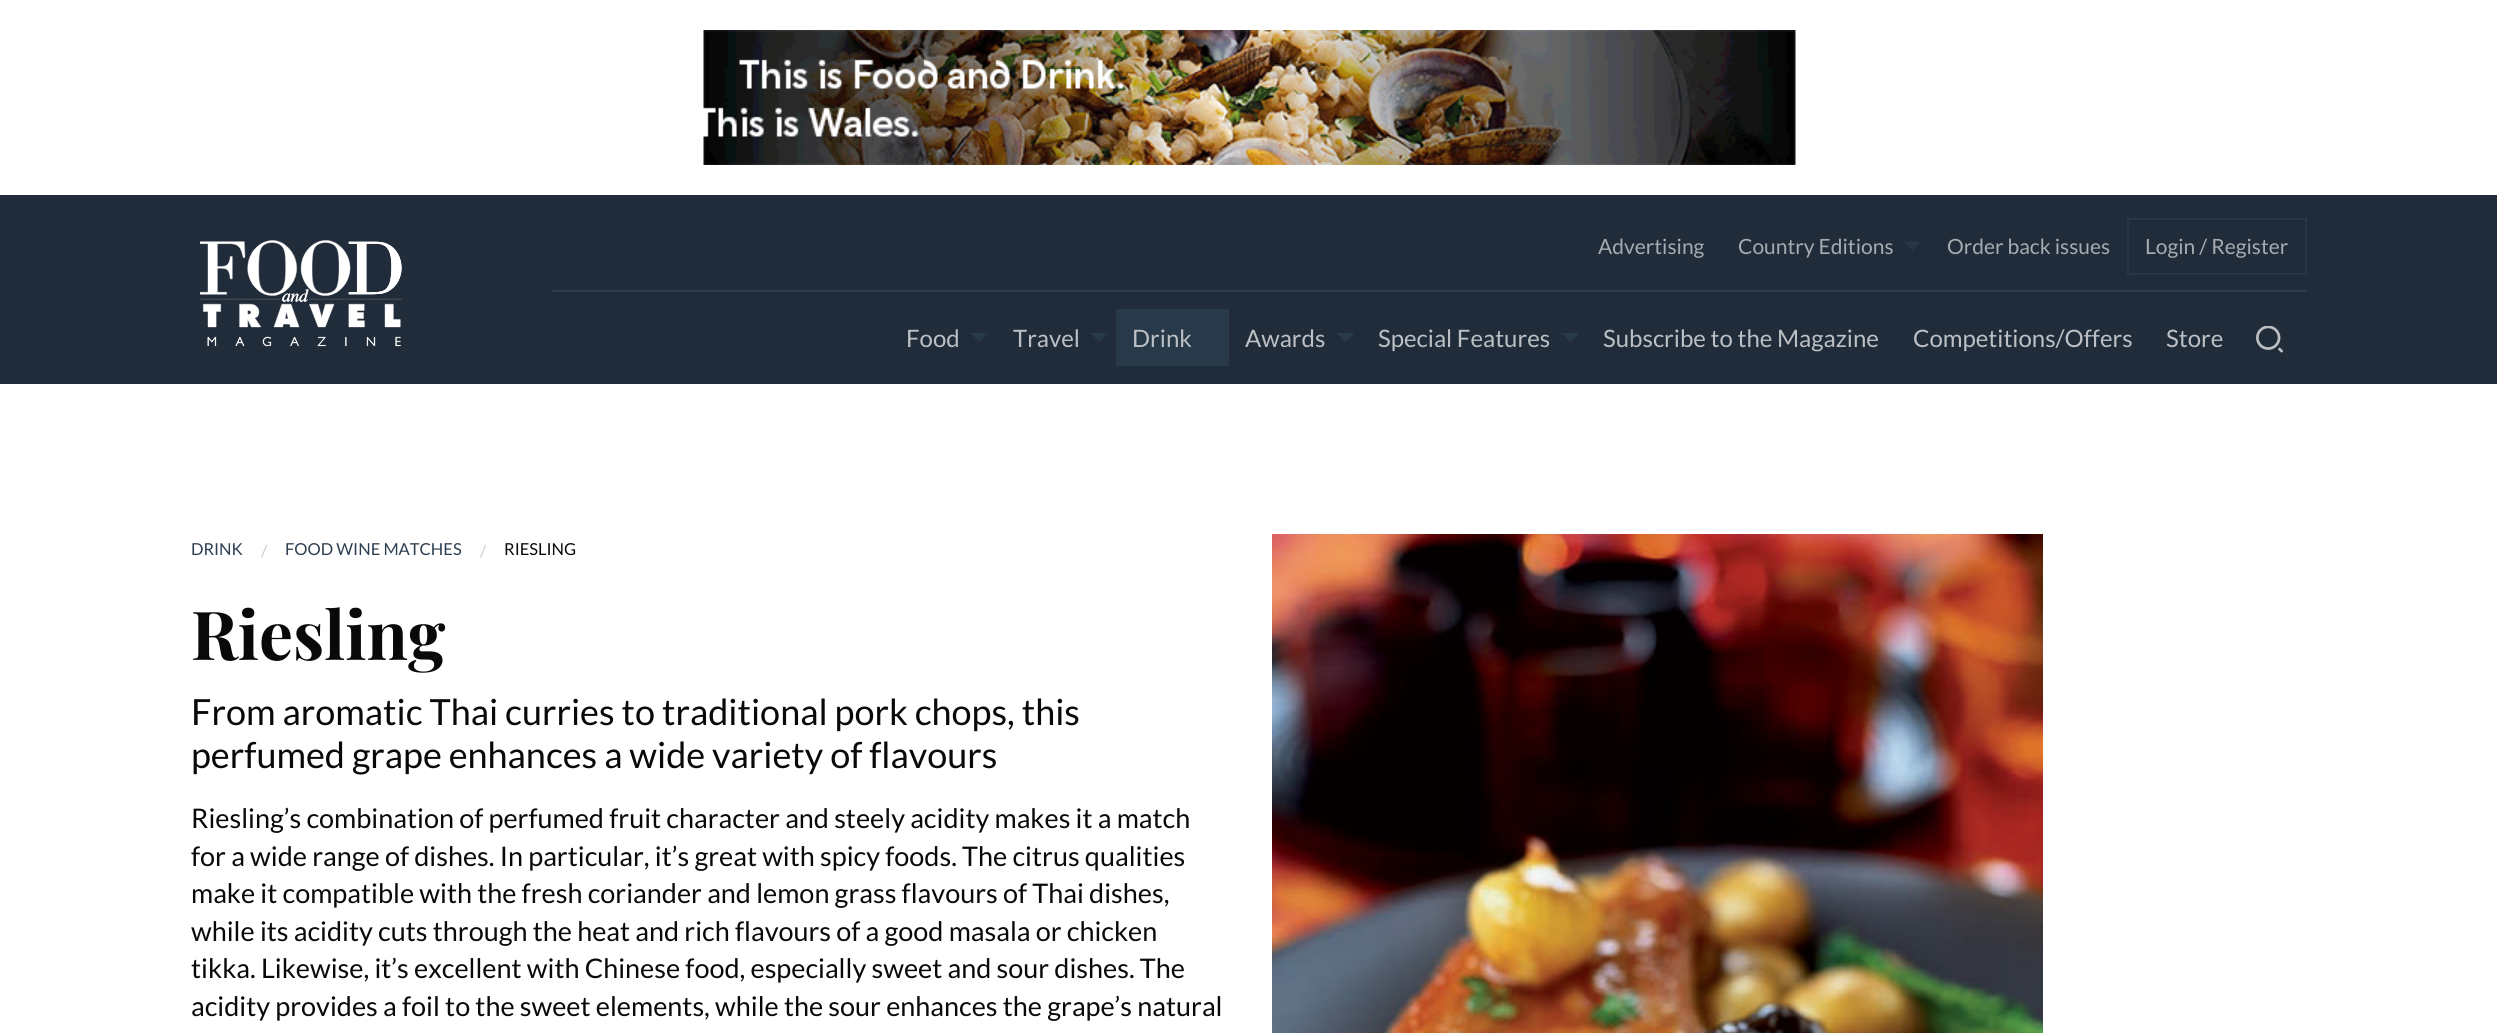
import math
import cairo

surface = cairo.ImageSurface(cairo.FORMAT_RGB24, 2497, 1033)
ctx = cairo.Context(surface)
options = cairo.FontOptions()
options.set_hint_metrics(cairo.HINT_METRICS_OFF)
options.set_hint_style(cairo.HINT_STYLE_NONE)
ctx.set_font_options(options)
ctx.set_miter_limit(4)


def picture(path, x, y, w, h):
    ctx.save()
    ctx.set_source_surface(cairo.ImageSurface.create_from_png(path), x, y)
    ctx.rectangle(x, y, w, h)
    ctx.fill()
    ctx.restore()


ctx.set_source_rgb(1, 1, 1)
ctx.paint()
picture("img1.png", 703, 30, 1093, 135)
ctx.set_source_rgb(0.125, 0.173, 0.227)
ctx.rectangle(0, 195, 2497, 189)
ctx.fill()
picture("img2.png", 200, 240, 202, 107)
ctx.select_font_face("Lato")
ctx.set_font_size(21)
ctx.set_source_rgb(0.651, 0.671, 0.69)
ctx.move_to(1598, 254)
ctx.show_text("Advertising")
ctx.move_to(1738, 254)
ctx.show_text("Country Editions")
ctx.set_source_rgb(0.153, 0.216, 0.278)
ctx.new_path()
ctx.move_to(1903.5, 241.5)
ctx.line_to(1921.5, 241.5)
ctx.line_to(1912.5, 250.5)
ctx.close_path()
ctx.fill()
ctx.set_source_rgb(0.651, 0.671, 0.69)
ctx.move_to(1947, 254)
ctx.show_text("Order back issues")
ctx.rectangle(2128, 219, 178, 55)
ctx.set_source_rgb(0.153, 0.216, 0.278)
ctx.stroke()
ctx.set_source_rgb(0.651, 0.671, 0.69)
ctx.move_to(2145, 254)
ctx.show_text("Login / Register")
ctx.set_source_rgb(0.169, 0.243, 0.314)
ctx.rectangle(552, 290, 1755, 2)
ctx.fill()
ctx.set_font_size(24)
ctx.set_source_rgb(0.737, 0.753, 0.769)
ctx.move_to(906, 347)
ctx.show_text("Food")
ctx.set_source_rgb(0.157, 0.224, 0.286)
ctx.new_path()
ctx.move_to(970.5, 333)
ctx.line_to(988.5, 333)
ctx.line_to(979.5, 342)
ctx.close_path()
ctx.fill()
ctx.set_source_rgb(0.737, 0.753, 0.769)
ctx.move_to(1013, 347)
ctx.show_text("Travel")
ctx.set_source_rgb(0.157, 0.224, 0.286)
ctx.new_path()
ctx.move_to(1090.5, 333)
ctx.line_to(1108.5, 333)
ctx.line_to(1099.5, 342)
ctx.close_path()
ctx.fill()
ctx.rectangle(1116, 309, 113, 57)
ctx.fill()
ctx.set_source_rgb(0.737, 0.753, 0.769)
ctx.move_to(1132, 347)
ctx.show_text("Drink")
ctx.move_to(1245, 347)
ctx.show_text("Awards")
ctx.set_source_rgb(0.157, 0.224, 0.286)
ctx.new_path()
ctx.move_to(1336.5, 333)
ctx.line_to(1354.5, 333)
ctx.line_to(1345.5, 342)
ctx.close_path()
ctx.fill()
ctx.set_source_rgb(0.737, 0.753, 0.769)
ctx.move_to(1378, 347)
ctx.show_text("Special Features")
ctx.set_source_rgb(0.157, 0.224, 0.286)
ctx.new_path()
ctx.move_to(1561.5, 333)
ctx.line_to(1579.5, 333)
ctx.line_to(1570.5, 342)
ctx.close_path()
ctx.fill()
ctx.set_source_rgb(0.737, 0.753, 0.769)
ctx.move_to(1603, 347)
ctx.show_text("Subscribe to the Magazine")
ctx.move_to(1913, 347)
ctx.show_text("Competitions/Offers")
ctx.move_to(2166, 347)
ctx.show_text("Store")
picture("img3.png", 2256, 326, 27, 27)
ctx.set_font_size(16.5)
ctx.set_source_rgb(0.173, 0.243, 0.314)
ctx.move_to(191, 555)
ctx.show_text("DRINK")
ctx.set_source_rgb(0.792, 0.792, 0.792)
ctx.move_to(261, 557)
ctx.show_text("/")
ctx.set_source_rgb(0.173, 0.243, 0.314)
ctx.move_to(285, 555)
ctx.show_text("FOOD WINE MATCHES")
ctx.set_source_rgb(0.792, 0.792, 0.792)
ctx.move_to(480, 557)
ctx.show_text("/")
ctx.set_source_rgb(0.039, 0.039, 0.039)
ctx.move_to(504, 555)
ctx.show_text("RIESLING")
ctx.select_font_face("Playfair Display", cairo.FONT_SLANT_NORMAL, cairo.FONT_WEIGHT_BOLD)
ctx.set_font_size(67.5)
ctx.move_to(191, 660)
ctx.show_text("Riesling")
ctx.select_font_face("Lato")
ctx.set_font_size(36)
ctx.move_to(191, 725)
ctx.show_text("From aromatic Thai curries to traditional pork chops, this")
ctx.move_to(191, 768)
ctx.show_text("perfumed grape enhances a wide variety of flavours")
ctx.set_font_size(27)
ctx.move_to(191, 828)
ctx.show_text("Riesling’s combination of perfumed fruit character and steely acidity makes it a match")
ctx.move_to(191, 866)
ctx.show_text("for a wide range of dishes. In particular, it’s great with spicy foods. The citrus qualities")
ctx.move_to(191, 903)
ctx.show_text("make it compatible with the fresh coriander and lemon grass flavours of Thai dishes,")
ctx.move_to(191, 941)
ctx.show_text("while its acidity cuts through the heat and rich flavours of a good masala or chicken")
ctx.move_to(191, 978)
ctx.show_text("tikka. Likewise, it’s excellent with Chinese food, especially sweet and sour dishes. The")
ctx.move_to(191, 1016)
ctx.show_text("acidity provides a foil to the sweet elements, while the sour enhances the grape’s natural")
picture("img4.png", 1272, 534, 771, 499)
surface.write_to_png("page.png")
